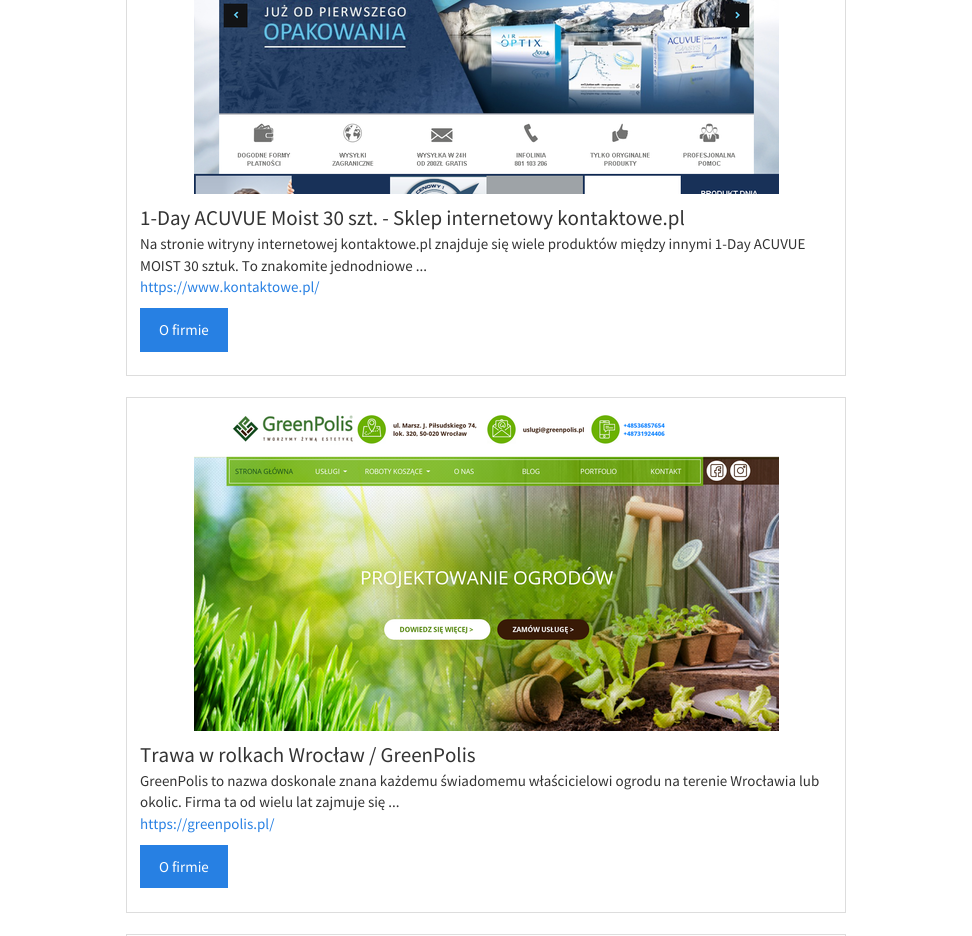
import math
import cairo

surface = cairo.ImageSurface(cairo.FORMAT_RGB24, 972, 936)
ctx = cairo.Context(surface)
options = cairo.FontOptions()
options.set_hint_metrics(cairo.HINT_METRICS_OFF)
options.set_hint_style(cairo.HINT_STYLE_NONE)
ctx.set_font_options(options)
ctx.set_miter_limit(4)


def picture(path, x, y, w, h):
    ctx.save()
    ctx.set_source_surface(cairo.ImageSurface.create_from_png(path), x, y)
    ctx.rectangle(x, y, w, h)
    ctx.fill()
    ctx.restore()


ctx.set_source_rgb(1, 1, 1)
ctx.paint()
ctx.rectangle(126.5, -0.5, 719, 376)
ctx.set_source_rgb(0.867, 0.867, 0.867)
ctx.set_line_width(1)
ctx.stroke()
picture("img1.png", 194, 0, 585, 194)
ctx.select_font_face("Source Sans Pro")
ctx.set_font_size(21)
ctx.set_source_rgb(0.2, 0.2, 0.2)
ctx.move_to(140, 225)
ctx.show_text("1-Day ACUVUE Moist 30 szt. - Sklep internetowy kontaktowe.pl")
ctx.set_font_size(15)
ctx.move_to(140, 249)
ctx.show_text("Na stronie witryny internetowej kontaktowe.pl znajduje się wiele produktów między innymi 1-Day ACUVUE")
ctx.move_to(140, 271)
ctx.show_text("MOIST 30 sztuk. To znakomite jednodniowe ...")
ctx.set_source_rgb(0.153, 0.502, 0.89)
ctx.move_to(140, 292)
ctx.show_text("https://www.kontaktowe.pl/")
ctx.rectangle(140, 308, 88, 44)
ctx.fill()
ctx.set_source_rgb(1, 1, 1)
ctx.move_to(159, 335)
ctx.show_text("O firmie")
ctx.rectangle(126.5, 397.5, 719, 515)
ctx.set_source_rgb(0.867, 0.867, 0.867)
ctx.stroke()
picture("img2.png", 194, 415, 585, 316)
ctx.set_font_size(21)
ctx.set_source_rgb(0.2, 0.2, 0.2)
ctx.move_to(140, 762)
ctx.show_text("Trawa w rolkach Wrocław / GreenPolis")
ctx.set_font_size(15)
ctx.move_to(140, 786)
ctx.show_text("GreenPolis to nazwa doskonale znana każdemu świadomemu właścicielowi ogrodu na terenie Wrocławia lub")
ctx.move_to(140, 807)
ctx.show_text("okolic. Firma ta od wielu lat zajmuje się ...")
ctx.set_source_rgb(0.153, 0.502, 0.89)
ctx.move_to(140, 829)
ctx.show_text("https://greenpolis.pl/")
ctx.rectangle(140, 845, 88, 43)
ctx.fill()
ctx.set_source_rgb(1, 1, 1)
ctx.move_to(159, 872)
ctx.show_text("O firmie")
ctx.rectangle(126.5, 934.5, 719, 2)
ctx.set_source_rgb(0.867, 0.867, 0.867)
ctx.stroke()
surface.write_to_png("page.png")
